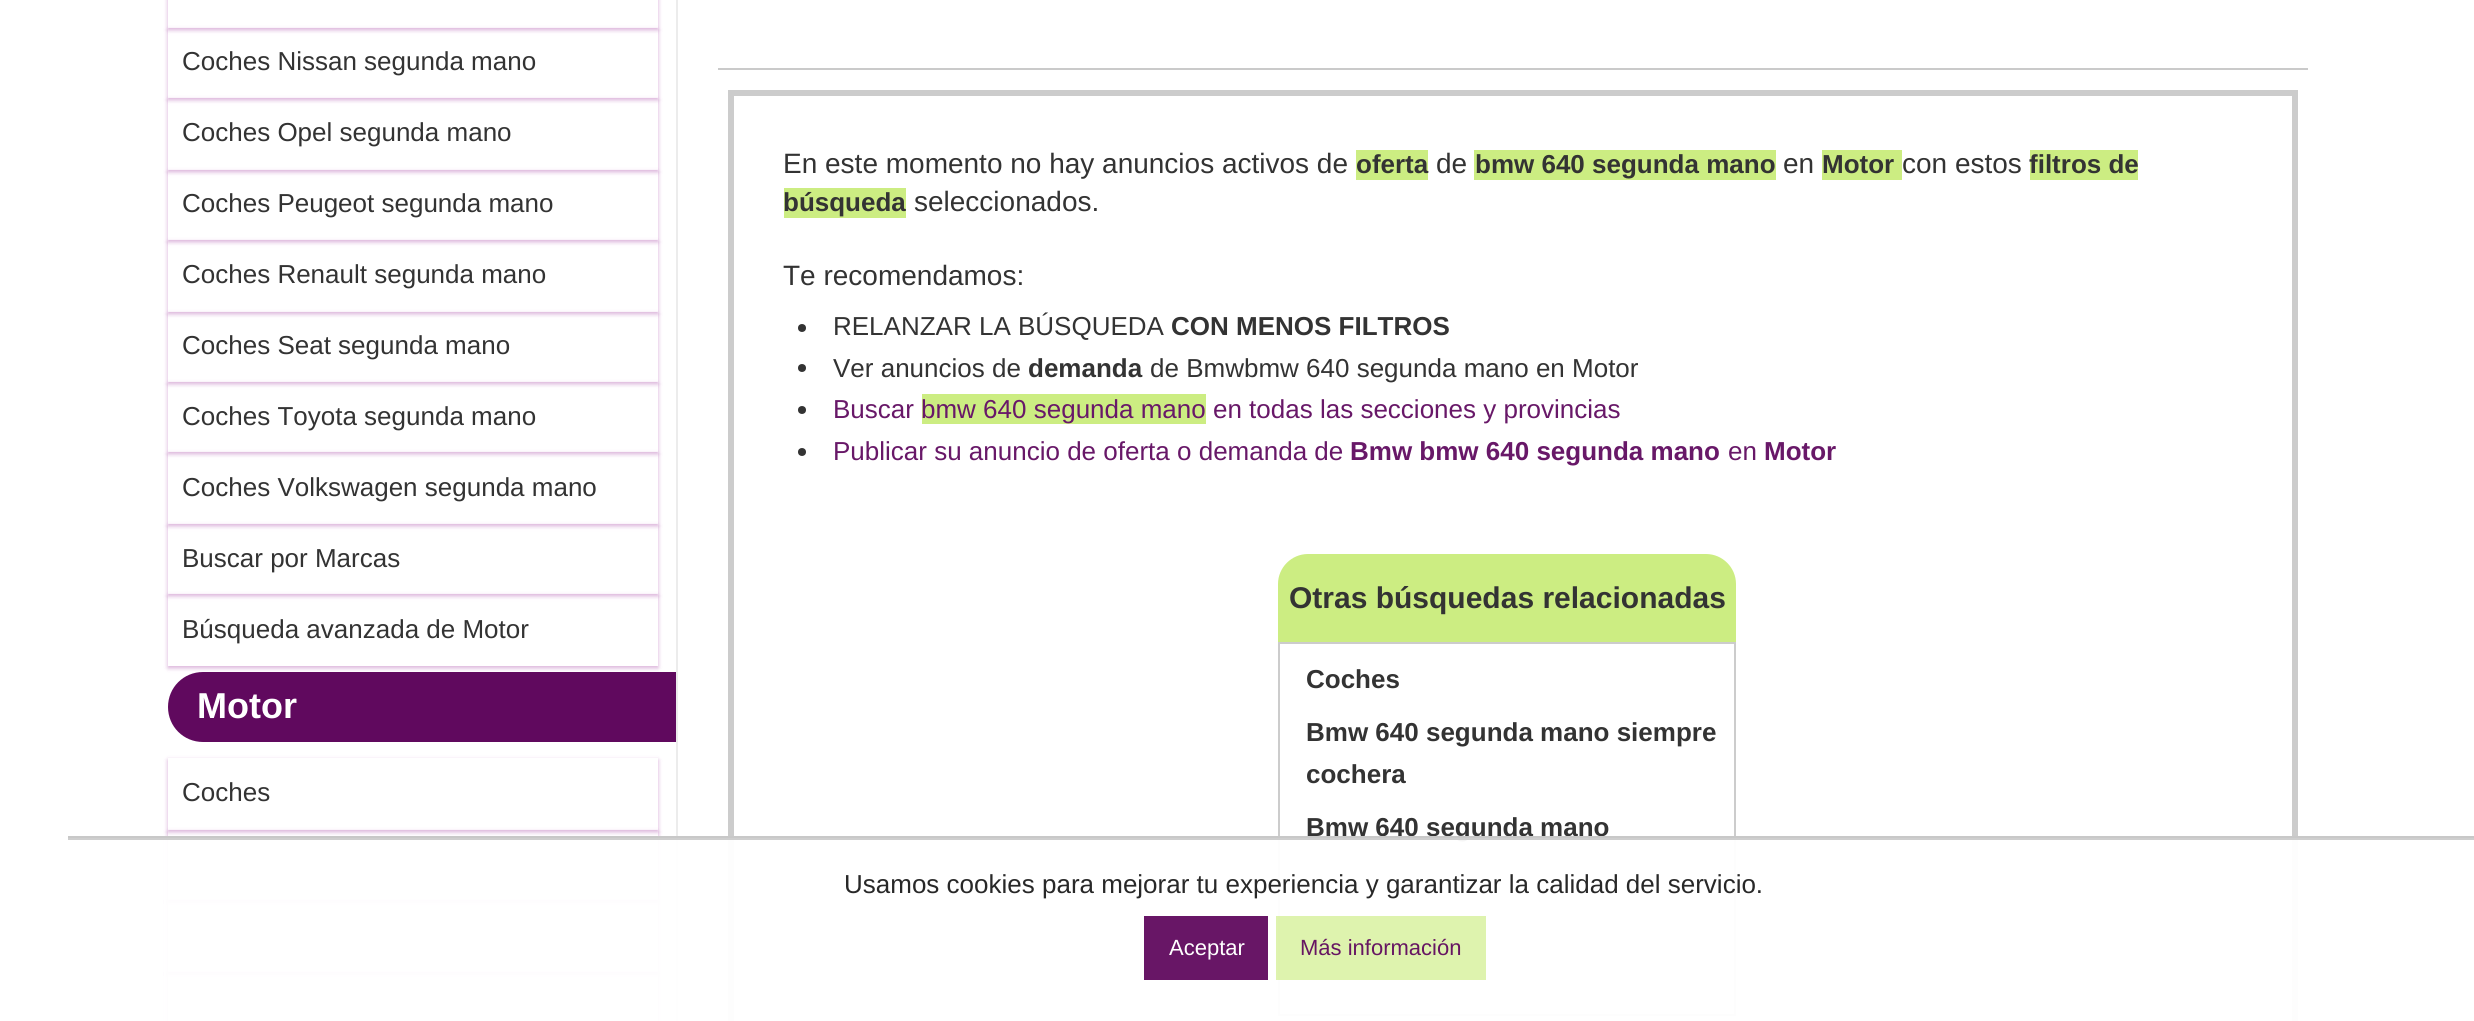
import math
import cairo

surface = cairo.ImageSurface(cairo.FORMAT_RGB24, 2474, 1021)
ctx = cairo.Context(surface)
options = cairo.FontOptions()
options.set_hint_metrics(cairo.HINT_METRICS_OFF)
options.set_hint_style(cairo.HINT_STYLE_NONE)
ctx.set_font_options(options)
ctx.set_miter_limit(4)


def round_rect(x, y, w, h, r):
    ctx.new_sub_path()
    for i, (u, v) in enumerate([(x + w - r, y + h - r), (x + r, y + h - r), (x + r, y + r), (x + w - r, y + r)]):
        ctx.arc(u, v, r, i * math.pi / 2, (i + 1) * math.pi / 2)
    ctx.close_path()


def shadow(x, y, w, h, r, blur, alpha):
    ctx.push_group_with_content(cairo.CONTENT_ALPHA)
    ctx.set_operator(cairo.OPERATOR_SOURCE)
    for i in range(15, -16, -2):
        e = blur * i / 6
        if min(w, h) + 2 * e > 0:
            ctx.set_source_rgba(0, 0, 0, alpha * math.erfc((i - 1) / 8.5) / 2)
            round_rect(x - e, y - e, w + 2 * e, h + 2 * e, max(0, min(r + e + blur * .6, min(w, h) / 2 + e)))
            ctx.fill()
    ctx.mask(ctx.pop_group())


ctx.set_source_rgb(1, 1, 1)
ctx.paint()
ctx.save()
ctx.set_fill_rule(cairo.FILL_RULE_EVEN_ODD)
ctx.new_path()
ctx.move_to(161, 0)
ctx.line_to(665, 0)
ctx.line_to(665, 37)
ctx.line_to(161, 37)
ctx.close_path()
ctx.move_to(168, -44)
ctx.line_to(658, -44)
ctx.line_to(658, 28)
ctx.line_to(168, 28)
ctx.close_path()
ctx.clip()
ctx.set_source_rgb(0.557, 0.059, 0.545)
shadow(168, -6, 490, 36, 0, 2, 0.24)
ctx.restore()
ctx.save()
ctx.set_fill_rule(cairo.FILL_RULE_EVEN_ODD)
ctx.new_path()
ctx.move_to(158, 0)
ctx.line_to(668, 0)
ctx.line_to(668, 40)
ctx.line_to(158, 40)
ctx.close_path()
ctx.move_to(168, -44)
ctx.line_to(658, -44)
ctx.line_to(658, 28)
ctx.line_to(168, 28)
ctx.close_path()
ctx.clip()
ctx.set_source_rgb(0.557, 0.059, 0.545)
shadow(168, -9, 490, 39, 0, 3, 0.12)
ctx.restore()
ctx.save()
ctx.set_fill_rule(cairo.FILL_RULE_EVEN_ODD)
ctx.new_path()
ctx.move_to(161, 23)
ctx.line_to(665, 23)
ctx.line_to(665, 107)
ctx.line_to(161, 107)
ctx.close_path()
ctx.move_to(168, 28)
ctx.line_to(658, 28)
ctx.line_to(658, 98)
ctx.line_to(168, 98)
ctx.close_path()
ctx.clip()
ctx.set_source_rgb(0.557, 0.059, 0.545)
shadow(168, 30, 490, 70, 0, 2, 0.24)
ctx.restore()
ctx.save()
ctx.set_fill_rule(cairo.FILL_RULE_EVEN_ODD)
ctx.new_path()
ctx.move_to(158, 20)
ctx.line_to(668, 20)
ctx.line_to(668, 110)
ctx.line_to(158, 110)
ctx.close_path()
ctx.move_to(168, 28)
ctx.line_to(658, 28)
ctx.line_to(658, 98)
ctx.line_to(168, 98)
ctx.close_path()
ctx.clip()
ctx.set_source_rgb(0.557, 0.059, 0.545)
shadow(168, 30, 490, 70, 0, 3, 0.12)
ctx.restore()
ctx.select_font_face("Liberation Sans")
ctx.set_font_size(26)
ctx.set_source_rgb(0.2, 0.2, 0.2)
ctx.move_to(182, 70)
ctx.show_text("Coches Nissan segunda mano")
ctx.save()
ctx.set_fill_rule(cairo.FILL_RULE_EVEN_ODD)
ctx.new_path()
ctx.move_to(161, 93)
ctx.line_to(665, 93)
ctx.line_to(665, 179)
ctx.line_to(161, 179)
ctx.close_path()
ctx.move_to(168, 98)
ctx.line_to(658, 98)
ctx.line_to(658, 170)
ctx.line_to(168, 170)
ctx.close_path()
ctx.clip()
ctx.set_source_rgb(0.557, 0.059, 0.545)
shadow(168, 100, 490, 72, 0, 2, 0.24)
ctx.restore()
ctx.save()
ctx.set_fill_rule(cairo.FILL_RULE_EVEN_ODD)
ctx.new_path()
ctx.move_to(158, 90)
ctx.line_to(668, 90)
ctx.line_to(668, 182)
ctx.line_to(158, 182)
ctx.close_path()
ctx.move_to(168, 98)
ctx.line_to(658, 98)
ctx.line_to(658, 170)
ctx.line_to(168, 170)
ctx.close_path()
ctx.clip()
ctx.set_source_rgb(0.557, 0.059, 0.545)
shadow(168, 100, 490, 72, 0, 3, 0.12)
ctx.restore()
ctx.move_to(182, 141)
ctx.show_text("Coches Opel segunda mano")
ctx.save()
ctx.set_fill_rule(cairo.FILL_RULE_EVEN_ODD)
ctx.new_path()
ctx.move_to(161, 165)
ctx.line_to(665, 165)
ctx.line_to(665, 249)
ctx.line_to(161, 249)
ctx.close_path()
ctx.move_to(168, 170)
ctx.line_to(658, 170)
ctx.line_to(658, 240)
ctx.line_to(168, 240)
ctx.close_path()
ctx.clip()
ctx.set_source_rgb(0.557, 0.059, 0.545)
shadow(168, 172, 490, 70, 0, 2, 0.24)
ctx.restore()
ctx.save()
ctx.set_fill_rule(cairo.FILL_RULE_EVEN_ODD)
ctx.new_path()
ctx.move_to(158, 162)
ctx.line_to(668, 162)
ctx.line_to(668, 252)
ctx.line_to(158, 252)
ctx.close_path()
ctx.move_to(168, 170)
ctx.line_to(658, 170)
ctx.line_to(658, 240)
ctx.line_to(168, 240)
ctx.close_path()
ctx.clip()
ctx.set_source_rgb(0.557, 0.059, 0.545)
shadow(168, 172, 490, 70, 0, 3, 0.12)
ctx.restore()
ctx.move_to(182, 212)
ctx.show_text("Coches Peugeot segunda mano")
ctx.save()
ctx.set_fill_rule(cairo.FILL_RULE_EVEN_ODD)
ctx.new_path()
ctx.move_to(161, 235)
ctx.line_to(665, 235)
ctx.line_to(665, 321)
ctx.line_to(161, 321)
ctx.close_path()
ctx.move_to(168, 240)
ctx.line_to(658, 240)
ctx.line_to(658, 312)
ctx.line_to(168, 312)
ctx.close_path()
ctx.clip()
ctx.set_source_rgb(0.557, 0.059, 0.545)
shadow(168, 242, 490, 72, 0, 2, 0.24)
ctx.restore()
ctx.save()
ctx.set_fill_rule(cairo.FILL_RULE_EVEN_ODD)
ctx.new_path()
ctx.move_to(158, 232)
ctx.line_to(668, 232)
ctx.line_to(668, 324)
ctx.line_to(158, 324)
ctx.close_path()
ctx.move_to(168, 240)
ctx.line_to(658, 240)
ctx.line_to(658, 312)
ctx.line_to(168, 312)
ctx.close_path()
ctx.clip()
ctx.set_source_rgb(0.557, 0.059, 0.545)
shadow(168, 242, 490, 72, 0, 3, 0.12)
ctx.restore()
ctx.move_to(182, 283)
ctx.show_text("Coches Renault segunda mano")
ctx.save()
ctx.set_fill_rule(cairo.FILL_RULE_EVEN_ODD)
ctx.new_path()
ctx.move_to(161, 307)
ctx.line_to(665, 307)
ctx.line_to(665, 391)
ctx.line_to(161, 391)
ctx.close_path()
ctx.move_to(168, 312)
ctx.line_to(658, 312)
ctx.line_to(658, 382)
ctx.line_to(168, 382)
ctx.close_path()
ctx.clip()
ctx.set_source_rgb(0.557, 0.059, 0.545)
shadow(168, 314, 490, 70, 0, 2, 0.24)
ctx.restore()
ctx.save()
ctx.set_fill_rule(cairo.FILL_RULE_EVEN_ODD)
ctx.new_path()
ctx.move_to(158, 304)
ctx.line_to(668, 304)
ctx.line_to(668, 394)
ctx.line_to(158, 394)
ctx.close_path()
ctx.move_to(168, 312)
ctx.line_to(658, 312)
ctx.line_to(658, 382)
ctx.line_to(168, 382)
ctx.close_path()
ctx.clip()
ctx.set_source_rgb(0.557, 0.059, 0.545)
shadow(168, 314, 490, 70, 0, 3, 0.12)
ctx.restore()
ctx.move_to(182, 354)
ctx.show_text("Coches Seat segunda mano")
ctx.save()
ctx.set_fill_rule(cairo.FILL_RULE_EVEN_ODD)
ctx.new_path()
ctx.move_to(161, 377)
ctx.line_to(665, 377)
ctx.line_to(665, 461)
ctx.line_to(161, 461)
ctx.close_path()
ctx.move_to(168, 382)
ctx.line_to(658, 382)
ctx.line_to(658, 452)
ctx.line_to(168, 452)
ctx.close_path()
ctx.clip()
ctx.set_source_rgb(0.557, 0.059, 0.545)
shadow(168, 384, 490, 70, 0, 2, 0.24)
ctx.restore()
ctx.save()
ctx.set_fill_rule(cairo.FILL_RULE_EVEN_ODD)
ctx.new_path()
ctx.move_to(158, 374)
ctx.line_to(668, 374)
ctx.line_to(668, 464)
ctx.line_to(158, 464)
ctx.close_path()
ctx.move_to(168, 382)
ctx.line_to(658, 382)
ctx.line_to(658, 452)
ctx.line_to(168, 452)
ctx.close_path()
ctx.clip()
ctx.set_source_rgb(0.557, 0.059, 0.545)
shadow(168, 384, 490, 70, 0, 3, 0.12)
ctx.restore()
ctx.move_to(182, 425)
ctx.show_text("Coches Toyota segunda mano")
ctx.save()
ctx.set_fill_rule(cairo.FILL_RULE_EVEN_ODD)
ctx.new_path()
ctx.move_to(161, 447)
ctx.line_to(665, 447)
ctx.line_to(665, 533)
ctx.line_to(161, 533)
ctx.close_path()
ctx.move_to(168, 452)
ctx.line_to(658, 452)
ctx.line_to(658, 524)
ctx.line_to(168, 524)
ctx.close_path()
ctx.clip()
ctx.set_source_rgb(0.557, 0.059, 0.545)
shadow(168, 454, 490, 72, 0, 2, 0.24)
ctx.restore()
ctx.save()
ctx.set_fill_rule(cairo.FILL_RULE_EVEN_ODD)
ctx.new_path()
ctx.move_to(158, 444)
ctx.line_to(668, 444)
ctx.line_to(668, 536)
ctx.line_to(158, 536)
ctx.close_path()
ctx.move_to(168, 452)
ctx.line_to(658, 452)
ctx.line_to(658, 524)
ctx.line_to(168, 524)
ctx.close_path()
ctx.clip()
ctx.set_source_rgb(0.557, 0.059, 0.545)
shadow(168, 454, 490, 72, 0, 3, 0.12)
ctx.restore()
ctx.move_to(182, 496)
ctx.show_text("Coches Volkswagen segunda mano")
ctx.save()
ctx.set_fill_rule(cairo.FILL_RULE_EVEN_ODD)
ctx.new_path()
ctx.move_to(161, 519)
ctx.line_to(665, 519)
ctx.line_to(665, 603)
ctx.line_to(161, 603)
ctx.close_path()
ctx.move_to(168, 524)
ctx.line_to(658, 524)
ctx.line_to(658, 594)
ctx.line_to(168, 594)
ctx.close_path()
ctx.clip()
ctx.set_source_rgb(0.557, 0.059, 0.545)
shadow(168, 526, 490, 70, 0, 2, 0.24)
ctx.restore()
ctx.save()
ctx.set_fill_rule(cairo.FILL_RULE_EVEN_ODD)
ctx.new_path()
ctx.move_to(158, 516)
ctx.line_to(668, 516)
ctx.line_to(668, 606)
ctx.line_to(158, 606)
ctx.close_path()
ctx.move_to(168, 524)
ctx.line_to(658, 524)
ctx.line_to(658, 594)
ctx.line_to(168, 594)
ctx.close_path()
ctx.clip()
ctx.set_source_rgb(0.557, 0.059, 0.545)
shadow(168, 526, 490, 70, 0, 3, 0.12)
ctx.restore()
ctx.move_to(182, 567)
ctx.show_text("Buscar por Marcas")
ctx.save()
ctx.set_fill_rule(cairo.FILL_RULE_EVEN_ODD)
ctx.new_path()
ctx.move_to(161, 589)
ctx.line_to(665, 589)
ctx.line_to(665, 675)
ctx.line_to(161, 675)
ctx.close_path()
ctx.move_to(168, 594)
ctx.line_to(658, 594)
ctx.line_to(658, 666)
ctx.line_to(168, 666)
ctx.close_path()
ctx.clip()
ctx.set_source_rgb(0.557, 0.059, 0.545)
shadow(168, 596, 490, 72, 0, 2, 0.24)
ctx.restore()
ctx.save()
ctx.set_fill_rule(cairo.FILL_RULE_EVEN_ODD)
ctx.new_path()
ctx.move_to(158, 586)
ctx.line_to(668, 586)
ctx.line_to(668, 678)
ctx.line_to(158, 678)
ctx.close_path()
ctx.move_to(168, 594)
ctx.line_to(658, 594)
ctx.line_to(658, 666)
ctx.line_to(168, 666)
ctx.close_path()
ctx.clip()
ctx.set_source_rgb(0.557, 0.059, 0.545)
shadow(168, 596, 490, 72, 0, 3, 0.12)
ctx.restore()
ctx.move_to(182, 638)
ctx.show_text("Búsqueda avanzada de Motor")
ctx.set_source_rgb(0.376, 0.039, 0.369)
ctx.new_path()
ctx.move_to(203, 672)
ctx.line_to(678, 672)
ctx.line_to(678, 742)
ctx.line_to(203, 742)
ctx.curve_to(183.5, 742, 168, 726.5, 168, 707)
ctx.curve_to(168, 687.5, 183.5, 672, 203, 672)
ctx.close_path()
ctx.fill()
ctx.select_font_face("Liberation Sans", cairo.FONT_SLANT_NORMAL, cairo.FONT_WEIGHT_BOLD)
ctx.set_font_size(36)
ctx.set_source_rgb(1, 1, 1)
ctx.move_to(197, 718)
ctx.show_text("Motor")
ctx.save()
ctx.set_fill_rule(cairo.FILL_RULE_EVEN_ODD)
ctx.new_path()
ctx.move_to(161, 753)
ctx.line_to(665, 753)
ctx.line_to(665, 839)
ctx.line_to(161, 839)
ctx.close_path()
ctx.move_to(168, 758)
ctx.line_to(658, 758)
ctx.line_to(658, 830)
ctx.line_to(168, 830)
ctx.close_path()
ctx.clip()
ctx.set_source_rgb(0.557, 0.059, 0.545)
shadow(168, 760, 490, 72, 0, 2, 0.24)
ctx.restore()
ctx.save()
ctx.set_fill_rule(cairo.FILL_RULE_EVEN_ODD)
ctx.new_path()
ctx.move_to(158, 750)
ctx.line_to(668, 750)
ctx.line_to(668, 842)
ctx.line_to(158, 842)
ctx.close_path()
ctx.move_to(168, 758)
ctx.line_to(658, 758)
ctx.line_to(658, 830)
ctx.line_to(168, 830)
ctx.close_path()
ctx.clip()
ctx.set_source_rgb(0.557, 0.059, 0.545)
shadow(168, 760, 490, 72, 0, 3, 0.12)
ctx.restore()
ctx.select_font_face("Liberation Sans")
ctx.set_font_size(26)
ctx.set_source_rgb(0.2, 0.2, 0.2)
ctx.move_to(182, 801)
ctx.show_text("Coches")
ctx.save()
ctx.set_fill_rule(cairo.FILL_RULE_EVEN_ODD)
ctx.new_path()
ctx.move_to(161, 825)
ctx.line_to(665, 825)
ctx.line_to(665, 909)
ctx.line_to(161, 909)
ctx.close_path()
ctx.move_to(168, 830)
ctx.line_to(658, 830)
ctx.line_to(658, 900)
ctx.line_to(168, 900)
ctx.close_path()
ctx.clip()
ctx.set_source_rgb(0.557, 0.059, 0.545)
shadow(168, 832, 490, 70, 0, 2, 0.24)
ctx.restore()
ctx.save()
ctx.set_fill_rule(cairo.FILL_RULE_EVEN_ODD)
ctx.new_path()
ctx.move_to(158, 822)
ctx.line_to(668, 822)
ctx.line_to(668, 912)
ctx.line_to(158, 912)
ctx.close_path()
ctx.move_to(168, 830)
ctx.line_to(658, 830)
ctx.line_to(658, 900)
ctx.line_to(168, 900)
ctx.close_path()
ctx.clip()
ctx.set_source_rgb(0.557, 0.059, 0.545)
shadow(168, 832, 490, 70, 0, 3, 0.12)
ctx.restore()
ctx.save()
ctx.set_fill_rule(cairo.FILL_RULE_EVEN_ODD)
ctx.new_path()
ctx.move_to(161, 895)
ctx.line_to(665, 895)
ctx.line_to(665, 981)
ctx.line_to(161, 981)
ctx.close_path()
ctx.move_to(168, 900)
ctx.line_to(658, 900)
ctx.line_to(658, 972)
ctx.line_to(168, 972)
ctx.close_path()
ctx.clip()
ctx.set_source_rgb(0.557, 0.059, 0.545)
shadow(168, 902, 490, 72, 0, 2, 0.24)
ctx.restore()
ctx.save()
ctx.set_fill_rule(cairo.FILL_RULE_EVEN_ODD)
ctx.new_path()
ctx.move_to(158, 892)
ctx.line_to(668, 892)
ctx.line_to(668, 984)
ctx.line_to(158, 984)
ctx.close_path()
ctx.move_to(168, 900)
ctx.line_to(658, 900)
ctx.line_to(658, 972)
ctx.line_to(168, 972)
ctx.close_path()
ctx.clip()
ctx.set_source_rgb(0.557, 0.059, 0.545)
shadow(168, 902, 490, 72, 0, 3, 0.12)
ctx.restore()
ctx.save()
ctx.set_fill_rule(cairo.FILL_RULE_EVEN_ODD)
ctx.new_path()
ctx.move_to(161, 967)
ctx.line_to(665, 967)
ctx.line_to(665, 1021)
ctx.line_to(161, 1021)
ctx.close_path()
ctx.move_to(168, 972)
ctx.line_to(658, 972)
ctx.line_to(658, 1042)
ctx.line_to(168, 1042)
ctx.close_path()
ctx.clip()
ctx.set_source_rgb(0.557, 0.059, 0.545)
shadow(168, 974, 490, 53, 0, 2, 0.24)
ctx.restore()
ctx.save()
ctx.set_fill_rule(cairo.FILL_RULE_EVEN_ODD)
ctx.new_path()
ctx.move_to(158, 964)
ctx.line_to(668, 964)
ctx.line_to(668, 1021)
ctx.line_to(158, 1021)
ctx.close_path()
ctx.move_to(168, 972)
ctx.line_to(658, 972)
ctx.line_to(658, 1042)
ctx.line_to(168, 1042)
ctx.close_path()
ctx.clip()
ctx.set_source_rgb(0.557, 0.059, 0.545)
shadow(168, 974, 490, 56, 0, 3, 0.12)
ctx.restore()
ctx.set_source_rgb(0.922, 0.922, 0.922)
ctx.rectangle(676, 0, 2, 1021)
ctx.fill()
ctx.set_source_rgb(0.792, 0.792, 0.792)
ctx.rectangle(718, 68, 1590, 2)
ctx.fill()
ctx.rectangle(731, 93, 1564, 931)
ctx.set_source_rgb(0.8, 0.8, 0.8)
ctx.set_line_width(6)
ctx.stroke()
ctx.set_font_size(28)
ctx.set_source_rgb(0.2, 0.2, 0.2)
ctx.move_to(783, 173)
ctx.show_text("En este momento no hay anuncios activos de")
ctx.set_source_rgb(0.8, 0.929, 0.51)
ctx.rectangle(1356, 150, 72, 30)
ctx.fill()
ctx.select_font_face("Liberation Sans", cairo.FONT_SLANT_NORMAL, cairo.FONT_WEIGHT_BOLD)
ctx.set_font_size(26)
ctx.set_source_rgb(0.2, 0.2, 0.2)
ctx.move_to(1356, 173)
ctx.show_text("oferta")
ctx.select_font_face("Liberation Sans")
ctx.set_font_size(28)
ctx.move_to(1436, 173)
ctx.show_text("de")
ctx.set_source_rgb(0.8, 0.929, 0.51)
ctx.rectangle(1474, 150, 302, 30)
ctx.fill()
ctx.select_font_face("Liberation Sans", cairo.FONT_SLANT_NORMAL, cairo.FONT_WEIGHT_BOLD)
ctx.set_font_size(26)
ctx.set_source_rgb(0.2, 0.2, 0.2)
ctx.move_to(1475, 173)
ctx.show_text("bmw 640 segunda mano")
ctx.select_font_face("Liberation Sans")
ctx.set_font_size(28)
ctx.move_to(1783, 173)
ctx.show_text("en")
ctx.set_source_rgb(0.8, 0.929, 0.51)
ctx.rectangle(1822, 150, 80, 30)
ctx.fill()
ctx.select_font_face("Liberation Sans", cairo.FONT_SLANT_NORMAL, cairo.FONT_WEIGHT_BOLD)
ctx.set_font_size(26)
ctx.set_source_rgb(0.2, 0.2, 0.2)
ctx.move_to(1822, 173)
ctx.show_text("Motor")
ctx.select_font_face("Liberation Sans")
ctx.set_font_size(28)
ctx.move_to(1902, 173)
ctx.show_text("con estos")
ctx.set_source_rgb(0.8, 0.929, 0.51)
ctx.rectangle(2030, 150, 108, 30)
ctx.fill()
ctx.select_font_face("Liberation Sans", cairo.FONT_SLANT_NORMAL, cairo.FONT_WEIGHT_BOLD)
ctx.set_font_size(26)
ctx.set_source_rgb(0.2, 0.2, 0.2)
ctx.move_to(2029, 173)
ctx.show_text("filtros de")
ctx.set_source_rgb(0.8, 0.929, 0.51)
ctx.rectangle(784, 188, 122, 30)
ctx.fill()
ctx.set_source_rgb(0.2, 0.2, 0.2)
ctx.move_to(783, 211)
ctx.show_text("búsqueda")
ctx.select_font_face("Liberation Sans")
ctx.set_font_size(28)
ctx.move_to(914, 211)
ctx.show_text("seleccionados.")
ctx.move_to(783, 285)
ctx.show_text("Te recomendamos:")
ctx.new_path()
ctx.arc(802, 328, 4, 0, 2 * math.pi)
ctx.fill()
ctx.set_font_size(26)
ctx.move_to(833, 335)
ctx.show_text("RELANZAR LA BÚSQUEDA")
ctx.select_font_face("Liberation Sans", cairo.FONT_SLANT_NORMAL, cairo.FONT_WEIGHT_BOLD)
ctx.move_to(1171, 335)
ctx.show_text("CON MENOS FILTROS")
ctx.new_path()
ctx.arc(802, 368, 4, 0, 2 * math.pi)
ctx.fill()
ctx.select_font_face("Liberation Sans")
ctx.move_to(833, 377)
ctx.show_text("Ver anuncios de")
ctx.select_font_face("Liberation Sans", cairo.FONT_SLANT_NORMAL, cairo.FONT_WEIGHT_BOLD)
ctx.move_to(1028, 377)
ctx.show_text("demanda")
ctx.select_font_face("Liberation Sans")
ctx.move_to(1150, 377)
ctx.show_text("de Bmwbmw 640 segunda mano en Motor")
ctx.new_path()
ctx.arc(802, 410, 4, 0, 2 * math.pi)
ctx.fill()
ctx.set_source_rgb(0.408, 0.094, 0.408)
ctx.move_to(833, 418)
ctx.show_text("Buscar")
ctx.set_source_rgb(0.8, 0.929, 0.51)
ctx.rectangle(922, 394, 284, 30)
ctx.fill()
ctx.set_source_rgb(0.408, 0.094, 0.408)
ctx.move_to(921, 418)
ctx.show_text("bmw 640 segunda mano en todas las secciones y provincias")
ctx.set_source_rgb(0.2, 0.2, 0.2)
ctx.new_path()
ctx.arc(802, 452, 4, 0, 2 * math.pi)
ctx.fill()
ctx.set_source_rgb(0.408, 0.094, 0.408)
ctx.move_to(833, 460)
ctx.show_text("Publicar su anuncio de oferta o demanda de")
ctx.select_font_face("Liberation Sans", cairo.FONT_SLANT_NORMAL, cairo.FONT_WEIGHT_BOLD)
ctx.move_to(1350, 460)
ctx.show_text("Bmw bmw 640 segunda mano")
ctx.select_font_face("Liberation Sans")
ctx.move_to(1728, 460)
ctx.show_text("en")
ctx.select_font_face("Liberation Sans", cairo.FONT_SLANT_NORMAL, cairo.FONT_WEIGHT_BOLD)
ctx.move_to(1764, 460)
ctx.show_text("Motor")
ctx.set_source_rgb(0.8, 0.929, 0.51)
ctx.new_path()
ctx.move_to(1308, 554)
ctx.line_to(1706, 554)
ctx.curve_to(1722.5, 554, 1736, 567.5, 1736, 584)
ctx.line_to(1736, 642)
ctx.line_to(1278, 642)
ctx.line_to(1278, 584)
ctx.curve_to(1278, 567.5, 1291.5, 554, 1308, 554)
ctx.close_path()
ctx.fill()
ctx.set_font_size(30)
ctx.set_source_rgb(0.2, 0.2, 0.2)
ctx.move_to(1289, 608)
ctx.show_text("Otras búsquedas relacionadas")
ctx.rectangle(1279, 643, 456, 372)
ctx.set_source_rgb(0.8, 0.8, 0.8)
ctx.set_line_width(2)
ctx.stroke()
ctx.set_font_size(26)
ctx.set_source_rgb(0.2, 0.2, 0.2)
ctx.move_to(1306, 688)
ctx.show_text("Coches")
ctx.move_to(1306, 741)
ctx.show_text("Bmw 640 segunda mano siempre")
ctx.move_to(1306, 783)
ctx.show_text("cochera")
ctx.move_to(1306, 836)
ctx.show_text("Bmw 640 segunda mano")
ctx.set_source_rgba(1, 1, 1, 0.95)
ctx.rectangle(164, 836, 2134, 185)
ctx.fill()
ctx.set_source_rgba(0.776, 0.776, 0.776, 0.95)
ctx.rectangle(68, 836, 2406, 2)
ctx.fill()
ctx.set_source_rgba(0.8, 0.8, 0.8, 0.95)
ctx.rectangle(68, 838, 2406, 2)
ctx.fill()
ctx.select_font_face("Liberation Sans")
ctx.set_source_rgb(0.157, 0.157, 0.157)
ctx.move_to(844, 893)
ctx.show_text("Usamos cookies para mejorar tu experiencia y garantizar la calidad del servicio.")
ctx.set_source_rgb(0.408, 0.086, 0.4)
ctx.rectangle(1144, 916, 124, 64)
ctx.fill()
ctx.set_font_size(22)
ctx.set_source_rgb(1, 1, 1)
ctx.move_to(1169, 955)
ctx.show_text("Aceptar")
ctx.set_source_rgba(0.804, 0.925, 0.518, 0.66)
ctx.rectangle(1276, 916, 210, 64)
ctx.fill()
ctx.set_source_rgb(0.4, 0.086, 0.384)
ctx.move_to(1300, 955)
ctx.show_text("Más información")
surface.write_to_png("page.png")
